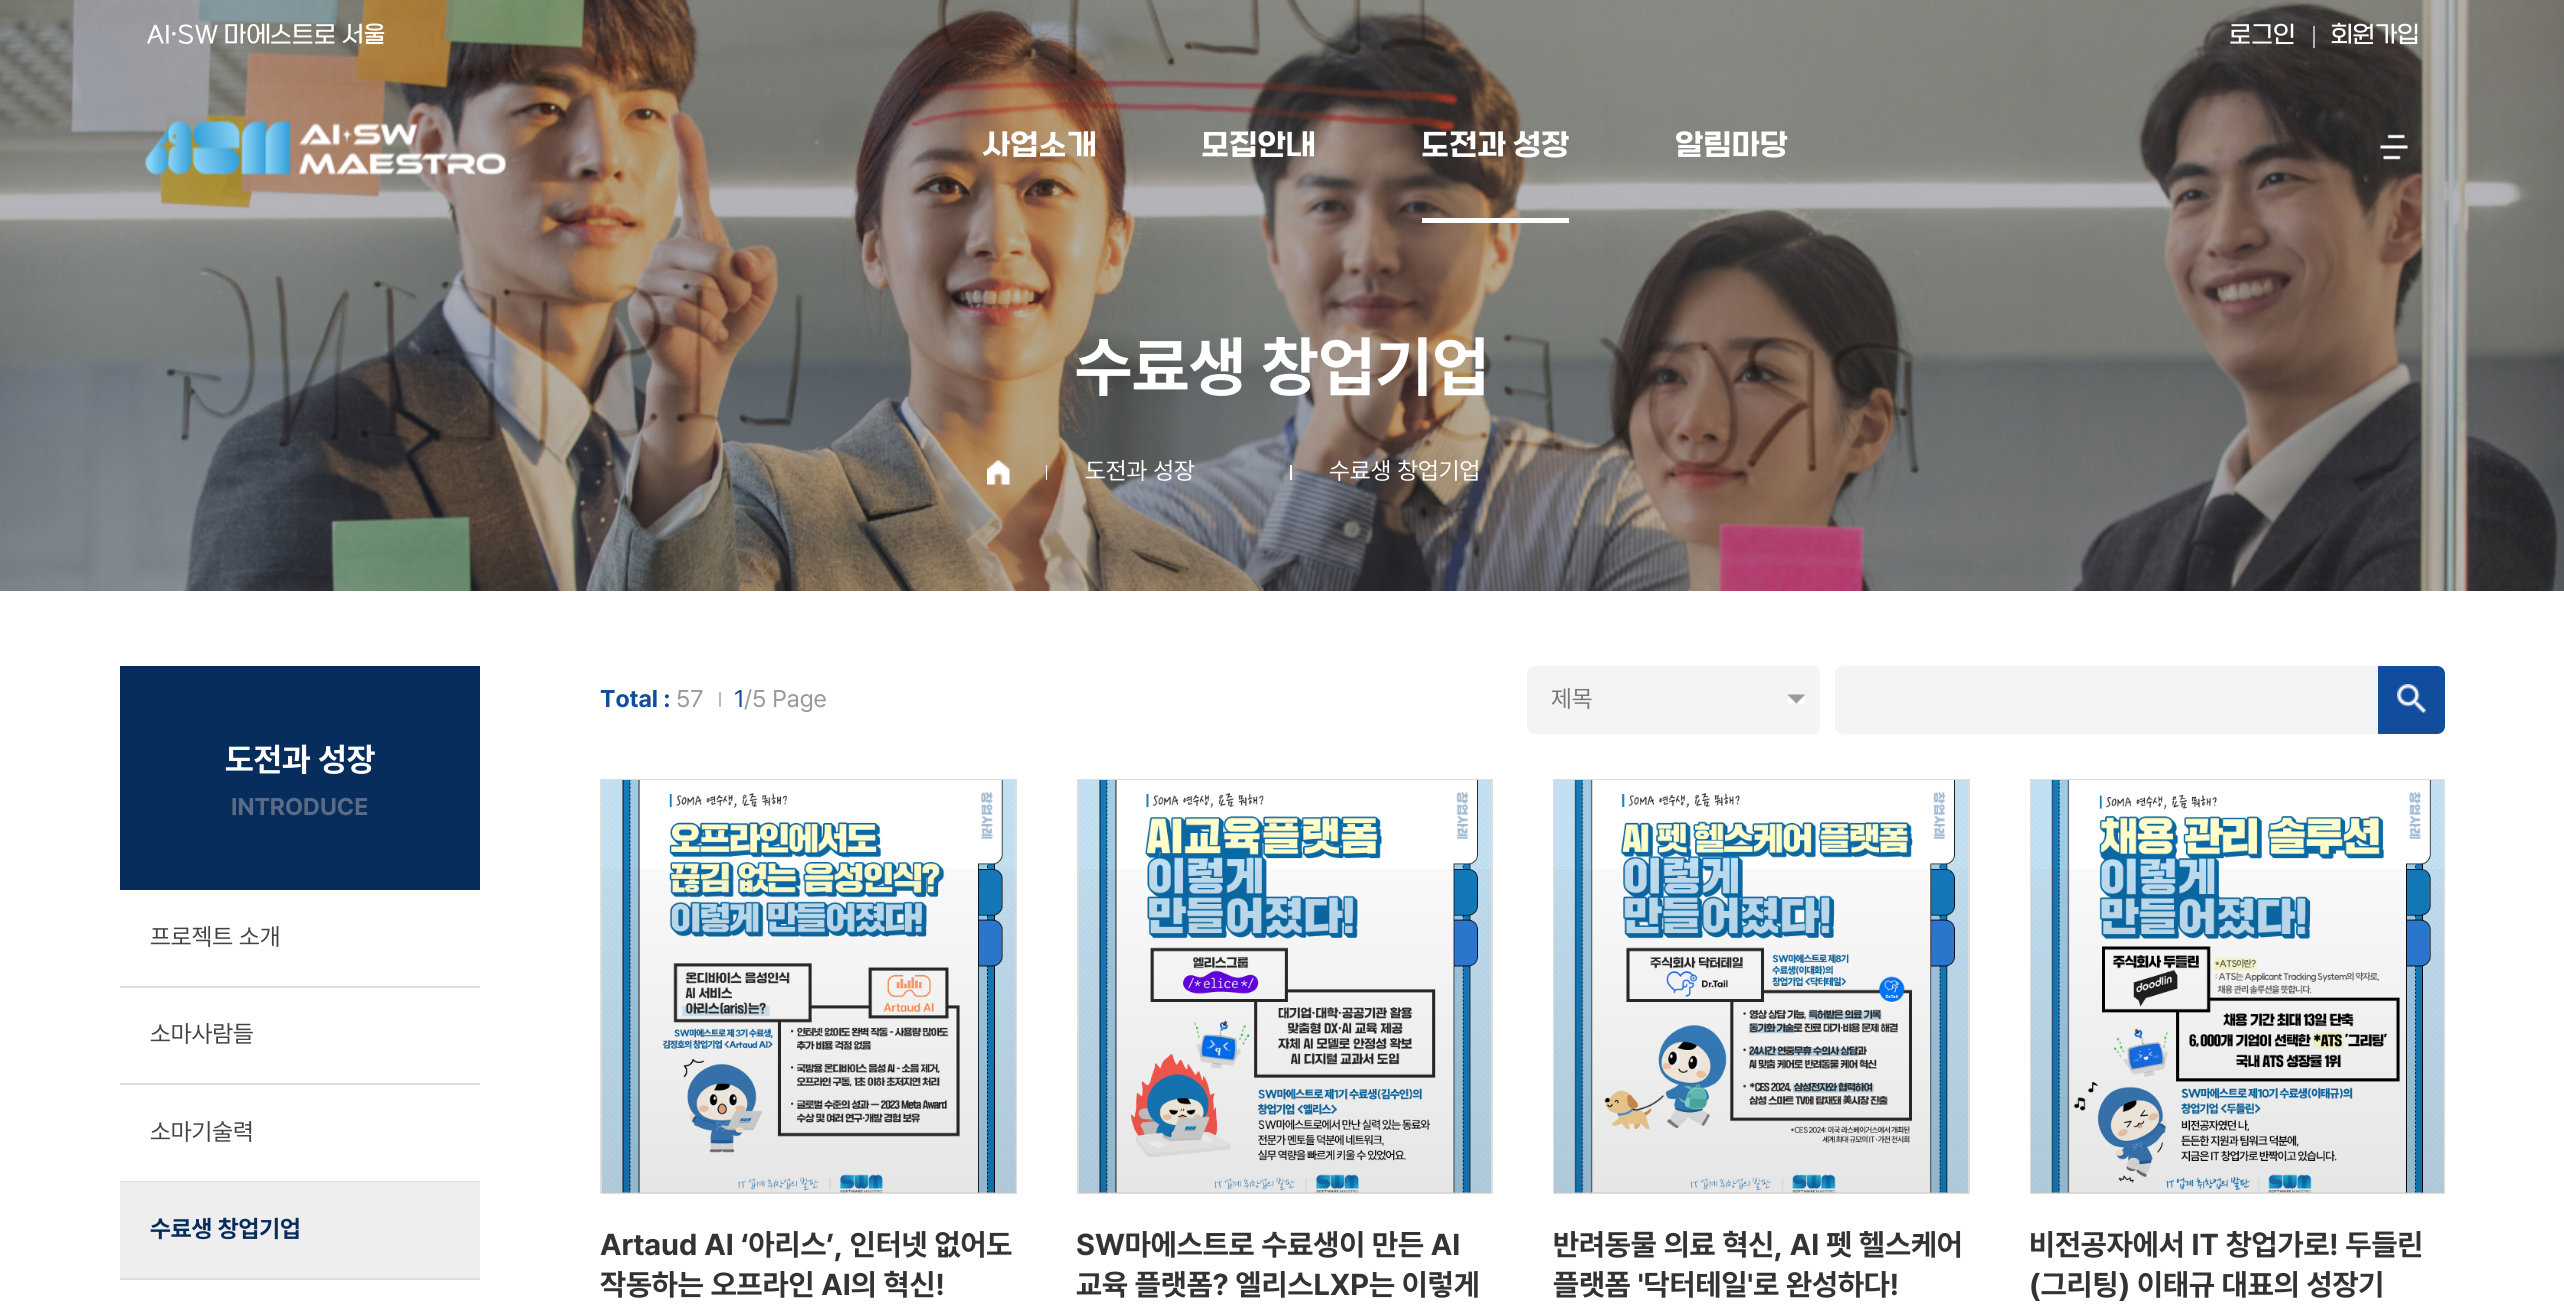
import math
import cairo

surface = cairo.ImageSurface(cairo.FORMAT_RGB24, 2564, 1307)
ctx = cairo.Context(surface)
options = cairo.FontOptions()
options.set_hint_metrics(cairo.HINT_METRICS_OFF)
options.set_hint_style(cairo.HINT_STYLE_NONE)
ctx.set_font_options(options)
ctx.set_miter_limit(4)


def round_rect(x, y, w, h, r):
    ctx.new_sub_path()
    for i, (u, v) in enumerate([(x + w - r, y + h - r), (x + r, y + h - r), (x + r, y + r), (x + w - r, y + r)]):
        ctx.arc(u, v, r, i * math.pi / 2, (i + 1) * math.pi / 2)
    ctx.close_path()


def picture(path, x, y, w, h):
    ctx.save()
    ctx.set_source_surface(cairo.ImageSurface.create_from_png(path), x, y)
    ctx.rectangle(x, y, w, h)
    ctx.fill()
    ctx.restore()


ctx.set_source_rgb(1, 1, 1)
ctx.paint()
picture("img3.png", 0, 0, 2564, 591)
ctx.select_font_face("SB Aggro")
ctx.set_font_size(24)
ctx.set_source_rgb(1, 1, 1)
ctx.move_to(146, 41)
ctx.show_text("AI·SW 마에스트로 서울")
ctx.move_to(2229, 41)
ctx.show_text("로그인")
ctx.set_source_rgb(0.678, 0.698, 0.725)
ctx.rectangle(2313, 26, 2, 22)
ctx.fill()
ctx.set_source_rgb(1, 1, 1)
ctx.move_to(2331, 41)
ctx.show_text("회원가입")
picture("img1.png", 145, 120, 361, 55)
ctx.select_font_face("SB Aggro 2")
ctx.set_font_size(30)
ctx.move_to(982, 153)
ctx.show_text("사업소개")
ctx.move_to(1201, 153)
ctx.show_text("모집안내")
ctx.move_to(1421, 153)
ctx.show_text("도전과 성장")
ctx.rectangle(1422, 218, 147, 5)
ctx.fill()
ctx.move_to(1675, 153)
ctx.show_text("알림마당")
picture("img2.png", 2380, 134, 28, 26)
ctx.select_font_face("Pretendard", cairo.FONT_SLANT_NORMAL, cairo.FONT_WEIGHT_BOLD)
ctx.set_font_size(66)
ctx.move_to(1075, 390)
ctx.show_text("수료생 창업기업")
picture("img4.png", 987, 460, 23, 25)
ctx.rectangle(1046, 465, 1, 15)
ctx.fill()
ctx.select_font_face("Pretendard")
ctx.set_font_size(24)
ctx.move_to(1085, 479)
ctx.show_text("도전과 성장")
ctx.rectangle(1290, 465, 2, 15)
ctx.fill()
ctx.move_to(1329, 479)
ctx.show_text("수료생 창업기업")
ctx.set_source_rgb(0.024, 0.176, 0.361)
ctx.rectangle(120, 666, 360, 224)
ctx.fill()
ctx.select_font_face("Pretendard", cairo.FONT_SLANT_NORMAL, cairo.FONT_WEIGHT_BOLD)
ctx.set_font_size(33)
ctx.set_source_rgb(1, 1, 1)
ctx.move_to(225, 771)
ctx.show_text("도전과 성장")
ctx.set_font_size(24)
ctx.set_source_rgb(0.357, 0.42, 0.525)
ctx.move_to(231, 815)
ctx.show_text("INTRODUCE")
ctx.set_source_rgb(0.867, 0.867, 0.867)
ctx.rectangle(120, 986, 360, 2)
ctx.fill()
ctx.select_font_face("Pretendard")
ctx.set_source_rgb(0.267, 0.267, 0.267)
ctx.move_to(150, 945)
ctx.show_text("프로젝트 소개")
ctx.set_source_rgb(0.867, 0.867, 0.867)
ctx.rectangle(120, 1083, 360, 2)
ctx.fill()
ctx.set_source_rgb(0.267, 0.267, 0.267)
ctx.move_to(150, 1042)
ctx.show_text("소마사람들")
ctx.set_source_rgb(0.867, 0.867, 0.867)
ctx.rectangle(120, 1181, 360, 1)
ctx.fill()
ctx.set_source_rgb(0.267, 0.267, 0.267)
ctx.move_to(150, 1140)
ctx.show_text("소마기술력")
ctx.set_source_rgb(0.867, 0.867, 0.867)
ctx.rectangle(120, 1278, 360, 2)
ctx.fill()
ctx.set_source_rgb(0.933, 0.933, 0.933)
ctx.rectangle(120, 1182, 360, 96)
ctx.fill()
ctx.select_font_face("Pretendard", cairo.FONT_SLANT_NORMAL, cairo.FONT_WEIGHT_BOLD)
ctx.set_source_rgb(0.024, 0.176, 0.361)
ctx.move_to(150, 1237)
ctx.show_text("수료생 창업기업")
ctx.set_source_rgb(0.067, 0.298, 0.616)
ctx.move_to(600, 707)
ctx.show_text("Total :")
ctx.select_font_face("Pretendard")
ctx.set_source_rgb(0.6, 0.6, 0.6)
ctx.move_to(676, 707)
ctx.show_text("57")
ctx.set_source_rgb(0.733, 0.733, 0.733)
ctx.rectangle(719, 692, 2, 15)
ctx.fill()
ctx.set_source_rgb(0.067, 0.298, 0.616)
ctx.move_to(734, 707)
ctx.show_text("1")
ctx.set_source_rgb(0.6, 0.6, 0.6)
ctx.move_to(744, 707)
ctx.show_text("/5 Page")
ctx.set_source_rgb(0.957, 0.957, 0.957)
round_rect(1527, 666, 293, 68, 8)
ctx.fill()
picture("img5.png", 1788, 694, 17, 10)
ctx.set_source_rgb(0.467, 0.467, 0.467)
ctx.move_to(1551, 707)
ctx.show_text("제목")
ctx.set_source_rgb(0.957, 0.957, 0.957)
ctx.new_path()
ctx.move_to(1843, 666)
ctx.line_to(2378, 666)
ctx.line_to(2378, 734)
ctx.line_to(1843, 734)
ctx.curve_to(1838.5, 734, 1835, 730.5, 1835, 726)
ctx.line_to(1835, 674)
ctx.curve_to(1835, 669.5, 1838.5, 666, 1843, 666)
ctx.close_path()
ctx.fill()
ctx.set_source_rgb(0.067, 0.298, 0.616)
ctx.new_path()
ctx.move_to(2378, 666)
ctx.line_to(2437, 666)
ctx.curve_to(2441.5, 666, 2445, 669.5, 2445, 674)
ctx.line_to(2445, 726)
ctx.curve_to(2445, 730.5, 2441.5, 734, 2437, 734)
ctx.line_to(2378, 734)
ctx.close_path()
ctx.fill()
picture("img6.png", 2397, 684, 30, 30)
ctx.rectangle(601, 780, 415, 413)
ctx.set_source_rgb(0.867, 0.867, 0.867)
ctx.stroke()
picture("img7.png", 601, 780, 415, 413)
gradient = cairo.LinearGradient(809, 780, 809, 1193)
gradient.add_color_stop_rgba(0, 0, 0, 0, 0)
gradient.add_color_stop_rgba(1, 0, 0, 0, 0.1)
ctx.set_source(gradient)
ctx.rectangle(602, 869, 414, 324)
ctx.fill()
ctx.select_font_face("Pretendard", cairo.FONT_SLANT_NORMAL, cairo.FONT_WEIGHT_BOLD)
ctx.set_font_size(30)
ctx.set_source_rgb(0.2, 0.2, 0.2)
ctx.move_to(600, 1255)
ctx.show_text("Artaud AI ‘아리스’, 인터넷 없어도")
ctx.move_to(600, 1295)
ctx.show_text("작동하는 오프라인 AI의 혁신!")
ctx.rectangle(1078, 780, 414, 413)
ctx.set_source_rgb(0.867, 0.867, 0.867)
ctx.stroke()
picture("img8.png", 1078, 780, 413, 413)
gradient = cairo.LinearGradient(1285, 780, 1285, 1193)
gradient.add_color_stop_rgba(0, 0, 0, 0, 0)
gradient.add_color_stop_rgba(1, 0, 0, 0, 0.1)
ctx.set_source(gradient)
ctx.rectangle(1079, 869, 412, 324)
ctx.fill()
ctx.set_source_rgb(0.2, 0.2, 0.2)
ctx.move_to(1076, 1255)
ctx.show_text("SW마에스트로 수료생이 만든 AI")
ctx.move_to(1076, 1295)
ctx.show_text("교육 플랫폼? 엘리스LXP는 이렇게")
ctx.rectangle(1554, 780, 415, 413)
ctx.set_source_rgb(0.867, 0.867, 0.867)
ctx.stroke()
picture("img9.png", 1554, 780, 414, 413)
gradient = cairo.LinearGradient(1761, 780, 1761, 1193)
gradient.add_color_stop_rgba(0, 0, 0, 0, 0)
gradient.add_color_stop_rgba(1, 0, 0, 0, 0.1)
ctx.set_source(gradient)
ctx.rectangle(1554, 869, 414, 324)
ctx.fill()
ctx.set_source_rgb(0.2, 0.2, 0.2)
ctx.move_to(1553, 1255)
ctx.show_text("반려동물 의료 혁신, AI 펫 헬스케어")
ctx.move_to(1553, 1295)
ctx.show_text("플랫폼 '닥터테일'로 완성하다!")
ctx.rectangle(2031, 780, 413, 413)
ctx.set_source_rgb(0.867, 0.867, 0.867)
ctx.stroke()
picture("img10.png", 2031, 780, 413, 413)
gradient = cairo.LinearGradient(2237, 780, 2237, 1193)
gradient.add_color_stop_rgba(0, 0, 0, 0, 0)
gradient.add_color_stop_rgba(1, 0, 0, 0, 0.1)
ctx.set_source(gradient)
ctx.rectangle(2031, 869, 413, 324)
ctx.fill()
ctx.set_source_rgb(0.2, 0.2, 0.2)
ctx.move_to(2029, 1255)
ctx.show_text("비전공자에서 IT 창업가로! 두들린")
ctx.move_to(2029, 1295)
ctx.show_text("(그리팅) 이태규 대표의 성장기")
surface.write_to_png("page.png")
